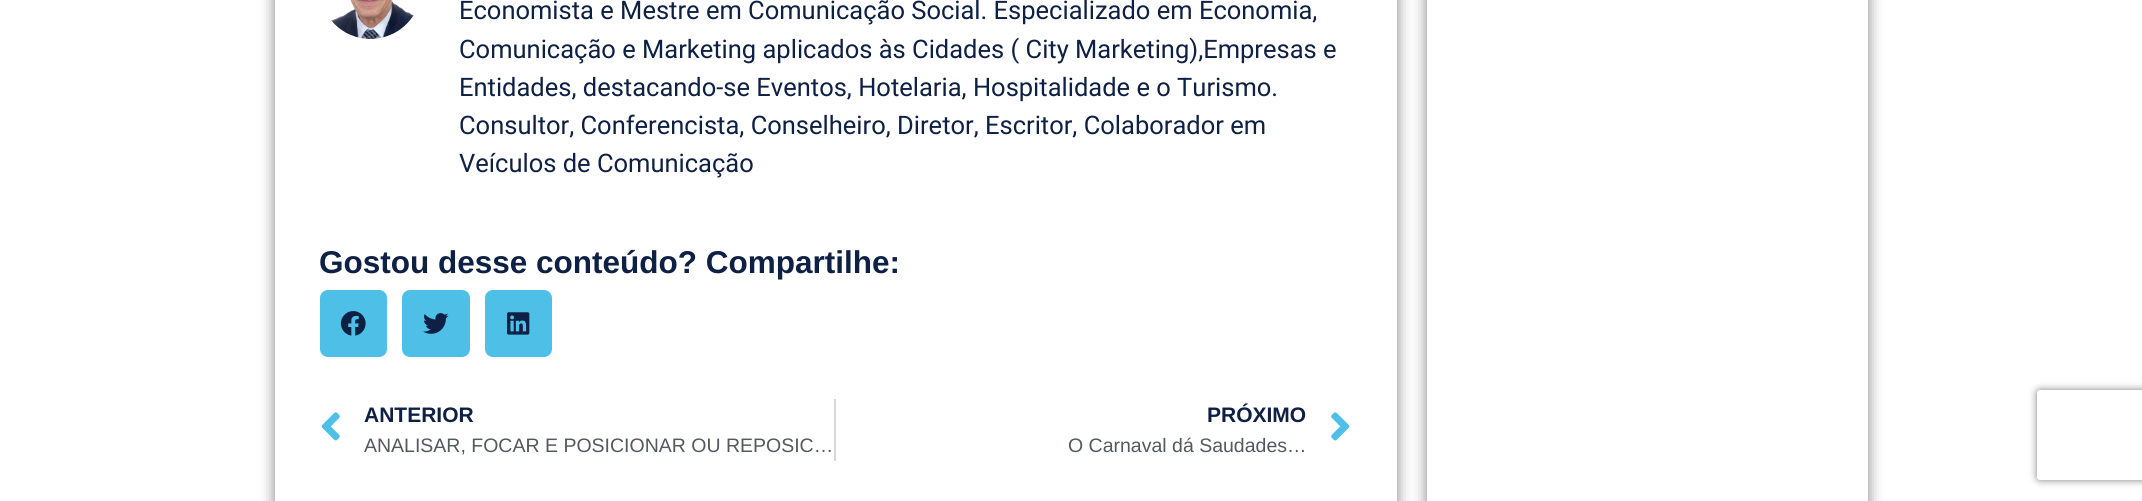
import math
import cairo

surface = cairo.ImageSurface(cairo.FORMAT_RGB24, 2142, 501)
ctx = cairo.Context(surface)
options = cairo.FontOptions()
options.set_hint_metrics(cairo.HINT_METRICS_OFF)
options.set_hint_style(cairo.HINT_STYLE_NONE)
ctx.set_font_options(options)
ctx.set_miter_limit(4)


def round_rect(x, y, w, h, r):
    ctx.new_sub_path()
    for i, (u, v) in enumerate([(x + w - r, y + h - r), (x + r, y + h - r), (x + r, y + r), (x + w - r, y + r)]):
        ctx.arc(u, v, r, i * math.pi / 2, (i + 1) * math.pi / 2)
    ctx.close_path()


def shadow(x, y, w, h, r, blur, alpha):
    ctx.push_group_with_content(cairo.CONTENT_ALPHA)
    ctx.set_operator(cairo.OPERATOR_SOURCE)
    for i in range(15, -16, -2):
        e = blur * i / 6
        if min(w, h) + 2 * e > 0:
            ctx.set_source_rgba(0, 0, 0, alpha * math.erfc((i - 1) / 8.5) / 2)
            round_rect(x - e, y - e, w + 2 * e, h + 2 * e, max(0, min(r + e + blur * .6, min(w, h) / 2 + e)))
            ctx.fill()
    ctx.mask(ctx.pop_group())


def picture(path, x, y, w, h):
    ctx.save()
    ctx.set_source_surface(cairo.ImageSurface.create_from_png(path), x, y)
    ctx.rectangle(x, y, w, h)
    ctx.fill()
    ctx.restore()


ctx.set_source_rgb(1, 1, 1)
ctx.paint()
ctx.save()
ctx.set_fill_rule(cairo.FILL_RULE_EVEN_ODD)
ctx.new_path()
ctx.move_to(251, 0)
ctx.line_to(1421, 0)
ctx.line_to(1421, 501)
ctx.line_to(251, 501)
ctx.close_path()
ctx.move_to(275, -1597)
ctx.line_to(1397, -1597)
ctx.line_to(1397, 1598)
ctx.line_to(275, 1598)
ctx.close_path()
ctx.clip()
ctx.set_source_rgb(0, 0, 0)
shadow(275, -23, 1122, 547, 0, 7.5, 0.5)
ctx.restore()
picture("img1.png", 331, 0, 83, 39)
ctx.select_font_face("Roboto")
ctx.set_font_size(25.5)
ctx.set_source_rgb(0.055, 0.125, 0.267)
ctx.move_to(459, 19)
ctx.show_text("Economista e Mestre em Comunicação Social. Especializado em Economia,")
ctx.move_to(459, 58)
ctx.show_text("Comunicação e Marketing aplicados às Cidades ( City Marketing),Empresas e")
ctx.move_to(459, 96)
ctx.show_text("Entidades, destacando-se Eventos, Hotelaria, Hospitalidade e o Turismo.")
ctx.move_to(459, 134)
ctx.show_text("Consultor, Conferencista, Conselheiro, Diretor, Escritor, Colaborador em")
ctx.move_to(459, 172)
ctx.show_text("Veículos de Comunicação")
ctx.select_font_face("Liberation Sans", cairo.FONT_SLANT_NORMAL, cairo.FONT_WEIGHT_BOLD)
ctx.set_font_size(31.5)
ctx.move_to(319, 273)
ctx.show_text("Gostou desse conteúdo? Compartilhe:")
ctx.set_source_rgb(0.306, 0.749, 0.902)
round_rect(320, 290, 67, 67, 8)
ctx.fill()
picture("img2.png", 340, 311, 26, 25)
round_rect(402, 290, 68, 67, 8)
ctx.fill()
picture("img3.png", 423, 313, 26, 21)
round_rect(485, 290, 67, 67, 8)
ctx.fill()
picture("img4.png", 507, 312, 23, 23)
picture("img5.png", 321, 412, 19, 29)
ctx.set_font_size(21)
ctx.set_source_rgb(0.055, 0.125, 0.267)
ctx.move_to(364, 422)
ctx.show_text("ANTERIOR")
ctx.select_font_face("Liberation Sans")
ctx.set_font_size(19.5)
ctx.set_source_rgb(0.329, 0.349, 0.373)
ctx.move_to(364, 452)
ctx.show_text("ANALISAR, FOCAR E POSICIONAR OU REPOSIC…")
ctx.set_source_rgb(0.835, 0.847, 0.863)
ctx.rectangle(834, 399, 2, 62)
ctx.fill()
ctx.select_font_face("Liberation Sans", cairo.FONT_SLANT_NORMAL, cairo.FONT_WEIGHT_BOLD)
ctx.set_font_size(21)
ctx.set_source_rgb(0.055, 0.125, 0.267)
ctx.move_to(1207, 422)
ctx.show_text("PRÓXIMO")
ctx.select_font_face("Liberation Sans")
ctx.set_font_size(19.5)
ctx.set_source_rgb(0.329, 0.349, 0.373)
ctx.move_to(1068, 452)
ctx.show_text("O Carnaval dá Saudades…")
picture("img6.png", 1331, 412, 19, 29)
ctx.save()
ctx.set_fill_rule(cairo.FILL_RULE_EVEN_ODD)
ctx.new_path()
ctx.move_to(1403, 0)
ctx.line_to(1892, 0)
ctx.line_to(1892, 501)
ctx.line_to(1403, 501)
ctx.close_path()
ctx.move_to(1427, -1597)
ctx.line_to(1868, -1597)
ctx.line_to(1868, 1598)
ctx.line_to(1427, 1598)
ctx.close_path()
ctx.clip()
ctx.set_source_rgb(0, 0, 0)
shadow(1427, -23, 441, 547, 0, 7.5, 0.5)
ctx.restore()
ctx.save()
ctx.set_fill_rule(cairo.FILL_RULE_EVEN_ODD)
ctx.new_path()
ctx.move_to(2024, 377)
ctx.line_to(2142, 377)
ctx.line_to(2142, 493)
ctx.line_to(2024, 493)
ctx.close_path()
ctx.move_to(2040, 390)
ctx.line_to(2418, 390)
ctx.curve_to(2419.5, 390, 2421, 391.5, 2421, 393)
ctx.line_to(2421, 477)
ctx.curve_to(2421, 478.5, 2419.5, 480, 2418, 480)
ctx.line_to(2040, 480)
ctx.curve_to(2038.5, 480, 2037, 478.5, 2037, 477)
ctx.line_to(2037, 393)
ctx.curve_to(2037, 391.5, 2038.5, 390, 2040, 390)
ctx.close_path()
ctx.clip()
ctx.set_source_rgb(0.502, 0.502, 0.502)
shadow(2037, 390, 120, 90, 3, 4, 1)
ctx.restore()
surface.write_to_png("page.png")
